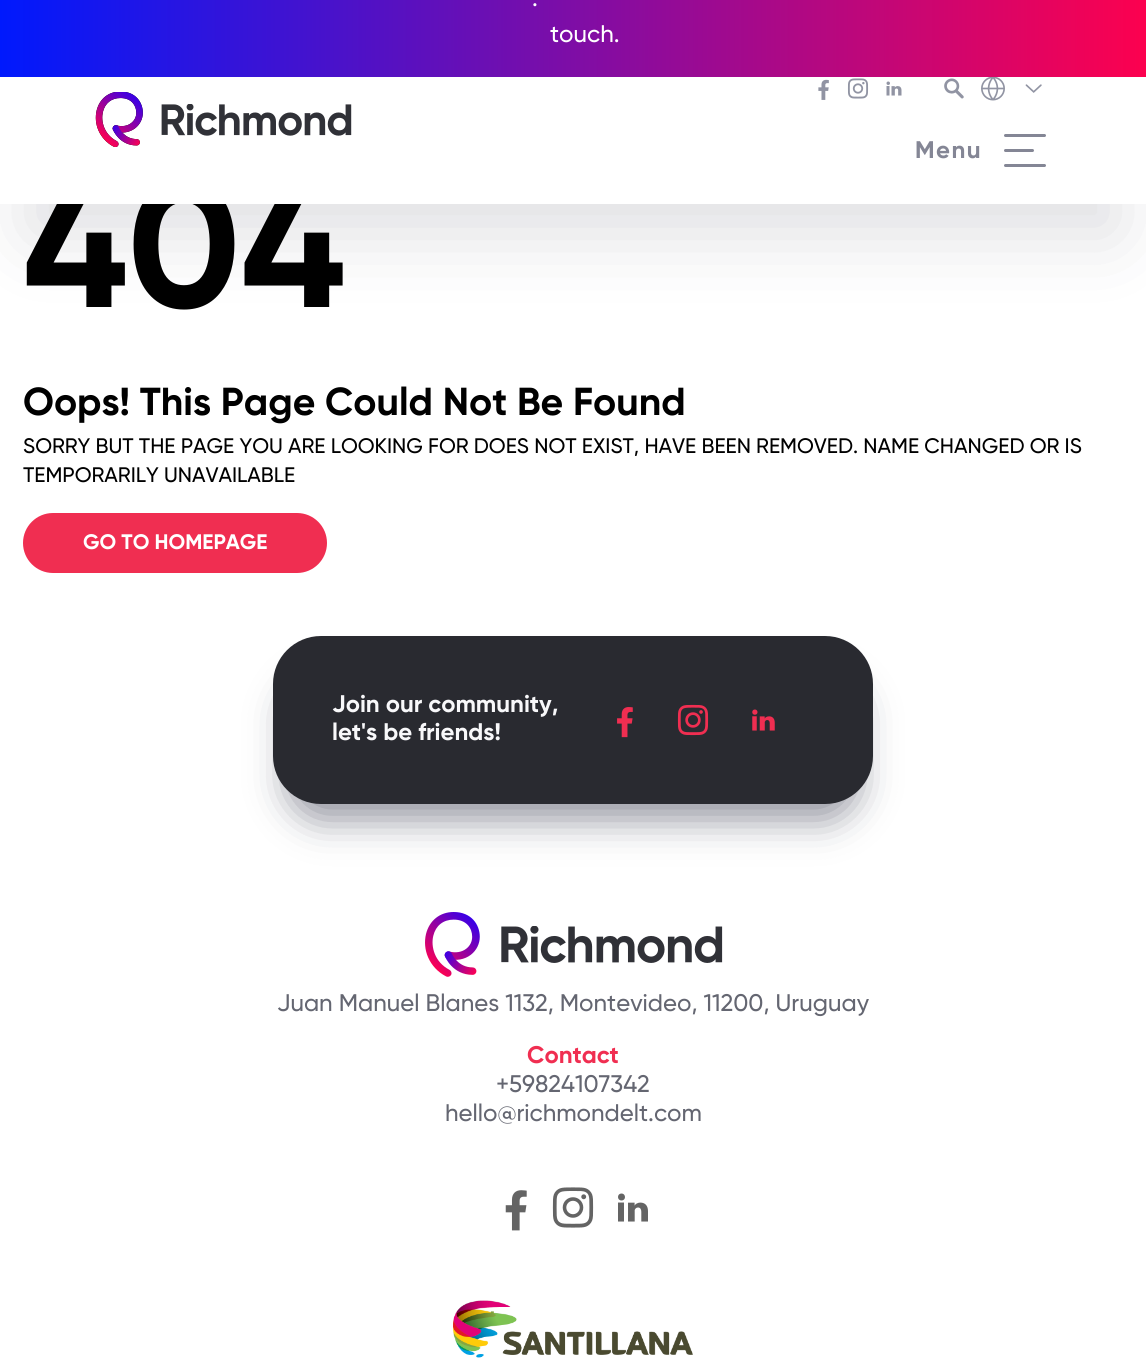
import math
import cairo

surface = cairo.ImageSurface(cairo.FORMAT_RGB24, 1146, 1366)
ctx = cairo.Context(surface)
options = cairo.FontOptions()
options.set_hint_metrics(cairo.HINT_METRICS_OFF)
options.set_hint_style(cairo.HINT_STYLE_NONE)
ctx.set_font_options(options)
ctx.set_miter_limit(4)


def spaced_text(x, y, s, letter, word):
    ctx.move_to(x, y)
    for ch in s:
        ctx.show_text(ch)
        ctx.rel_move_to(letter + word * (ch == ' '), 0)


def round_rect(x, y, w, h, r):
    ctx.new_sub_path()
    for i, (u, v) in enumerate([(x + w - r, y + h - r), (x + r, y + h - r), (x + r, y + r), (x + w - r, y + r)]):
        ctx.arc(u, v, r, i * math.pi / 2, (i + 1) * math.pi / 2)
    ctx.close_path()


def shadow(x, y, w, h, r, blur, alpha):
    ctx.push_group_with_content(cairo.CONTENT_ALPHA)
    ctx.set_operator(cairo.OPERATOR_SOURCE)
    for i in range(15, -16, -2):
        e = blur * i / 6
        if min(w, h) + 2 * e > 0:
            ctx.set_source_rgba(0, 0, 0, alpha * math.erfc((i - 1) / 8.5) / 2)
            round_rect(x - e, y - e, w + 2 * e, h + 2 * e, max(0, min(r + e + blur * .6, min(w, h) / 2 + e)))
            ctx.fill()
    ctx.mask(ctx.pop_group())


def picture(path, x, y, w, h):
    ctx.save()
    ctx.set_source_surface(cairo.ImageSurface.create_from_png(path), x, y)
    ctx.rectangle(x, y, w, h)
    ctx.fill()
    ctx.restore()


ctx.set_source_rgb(1, 1, 1)
ctx.paint()
ctx.set_source_rgb(0.133, 0.145, 0.231)
shadow(30, 90, 1086, 144, 0, 37.5, 0.15)
ctx.select_font_face("Gilroy", cairo.FONT_SLANT_NORMAL, cairo.FONT_WEIGHT_BOLD)
ctx.set_font_size(180)
ctx.set_source_rgb(0, 0, 0)
ctx.move_to(23, 307)
ctx.show_text("404")
ctx.set_source_rgb(1, 1, 1)
ctx.rectangle(0, 77, 1146, 127)
ctx.fill()
gradient = cairo.LinearGradient(0, 6, 1146, 6)
gradient.add_color_stop_rgba(0, 0, 0.098, 0.992, 1)
gradient.add_color_stop_rgba(1, 0.988, 0.004, 0.31, 1)
ctx.set_source(gradient)
ctx.rectangle(0, 0, 1146, 77)
ctx.fill()
ctx.select_font_face("Gilroy Medium")
ctx.set_font_size(24)
ctx.set_source_rgb(1, 1, 1)
ctx.move_to(532, 6)
ctx.show_text(".")
ctx.move_to(550, 42)
ctx.show_text("touch.")
picture("img1.png", 818, 79, 11, 21)
picture("img2.png", 847, 78, 22, 21)
picture("img3.png", 886, 81, 16, 15)
picture("img4.png", 944, 78, 20, 21)
picture("img5.png", 981, 77, 24, 24)
picture("img6.png", 1025, 84, 17, 9)
picture("img7.png", 95, 92, 48, 55)
picture("img8.png", 161, 104, 191, 32)
ctx.select_font_face("Gilroy", cairo.FONT_SLANT_NORMAL, cairo.FONT_WEIGHT_BOLD)
ctx.set_source_rgb(0.518, 0.525, 0.584)
spaced_text(915, 158, "Menu", 1.5, 0)
round_rect(1004, 134, 42, 3, 1.5)
ctx.fill()
round_rect(1004, 149, 30, 3, 1.5)
ctx.fill()
round_rect(1004, 164, 42, 3, 1.5)
ctx.fill()
ctx.set_font_size(39)
ctx.set_source_rgb(0, 0, 0)
ctx.move_to(23, 415)
ctx.show_text("Oops! This Page Could Not Be Found")
ctx.select_font_face("Gilroy Medium")
ctx.set_font_size(21)
ctx.move_to(23, 453)
ctx.show_text("SORRY BUT THE PAGE YOU ARE LOOKING FOR DOES NOT EXIST, HAVE BEEN REMOVED. NAME CHANGED OR IS")
ctx.move_to(23, 482)
ctx.show_text("TEMPORARILY UNAVAILABLE")
ctx.set_source_rgb(0.941, 0.18, 0.318)
round_rect(23, 513, 304, 60, 30)
ctx.fill()
ctx.select_font_face("Gilroy", cairo.FONT_SLANT_NORMAL, cairo.FONT_WEIGHT_BOLD)
ctx.set_source_rgb(1, 1, 1)
ctx.move_to(83, 549)
ctx.show_text("GO TO HOMEPAGE")
ctx.set_source_rgb(0.133, 0.145, 0.231)
shadow(288, 681, 570, 138, 33, 19, 0.5)
ctx.set_source_rgb(0.161, 0.165, 0.188)
round_rect(273, 636, 600, 168, 48)
ctx.fill()
ctx.set_font_size(24)
ctx.set_source_rgb(0.969, 0.969, 0.98)
ctx.move_to(332, 712)
ctx.show_text("Join our community,")
ctx.move_to(332, 740)
ctx.show_text("let's be friends!")
picture("img9.png", 617, 707, 16, 31)
picture("img10.png", 677, 704, 32, 32)
picture("img11.png", 752, 709, 23, 22)
picture("img12.png", 425, 912, 55, 65)
picture("img13.png", 501, 926, 222, 37)
ctx.select_font_face("Gilroy Medium")
ctx.set_source_rgb(0.392, 0.4, 0.443)
ctx.move_to(277, 1011)
ctx.show_text("Juan Manuel Blanes 1132, Montevideo, 11200, Uruguay")
ctx.select_font_face("Gilroy", cairo.FONT_SLANT_NORMAL, cairo.FONT_WEIGHT_BOLD)
ctx.set_source_rgb(0.941, 0.18, 0.318)
ctx.move_to(527, 1063)
ctx.show_text("Contact")
ctx.select_font_face("Gilroy Medium")
ctx.set_source_rgb(0.392, 0.4, 0.443)
ctx.move_to(496, 1092)
ctx.show_text("+59824107342")
ctx.move_to(445, 1121)
ctx.show_text("hello@richmondelt.com")
picture("img14.png", 505, 1190, 22, 41)
picture("img15.png", 552, 1187, 42, 41)
picture("img16.png", 618, 1193, 30, 29)
picture("img17.png", 453, 1300, 240, 58)
surface.write_to_png("page.png")
